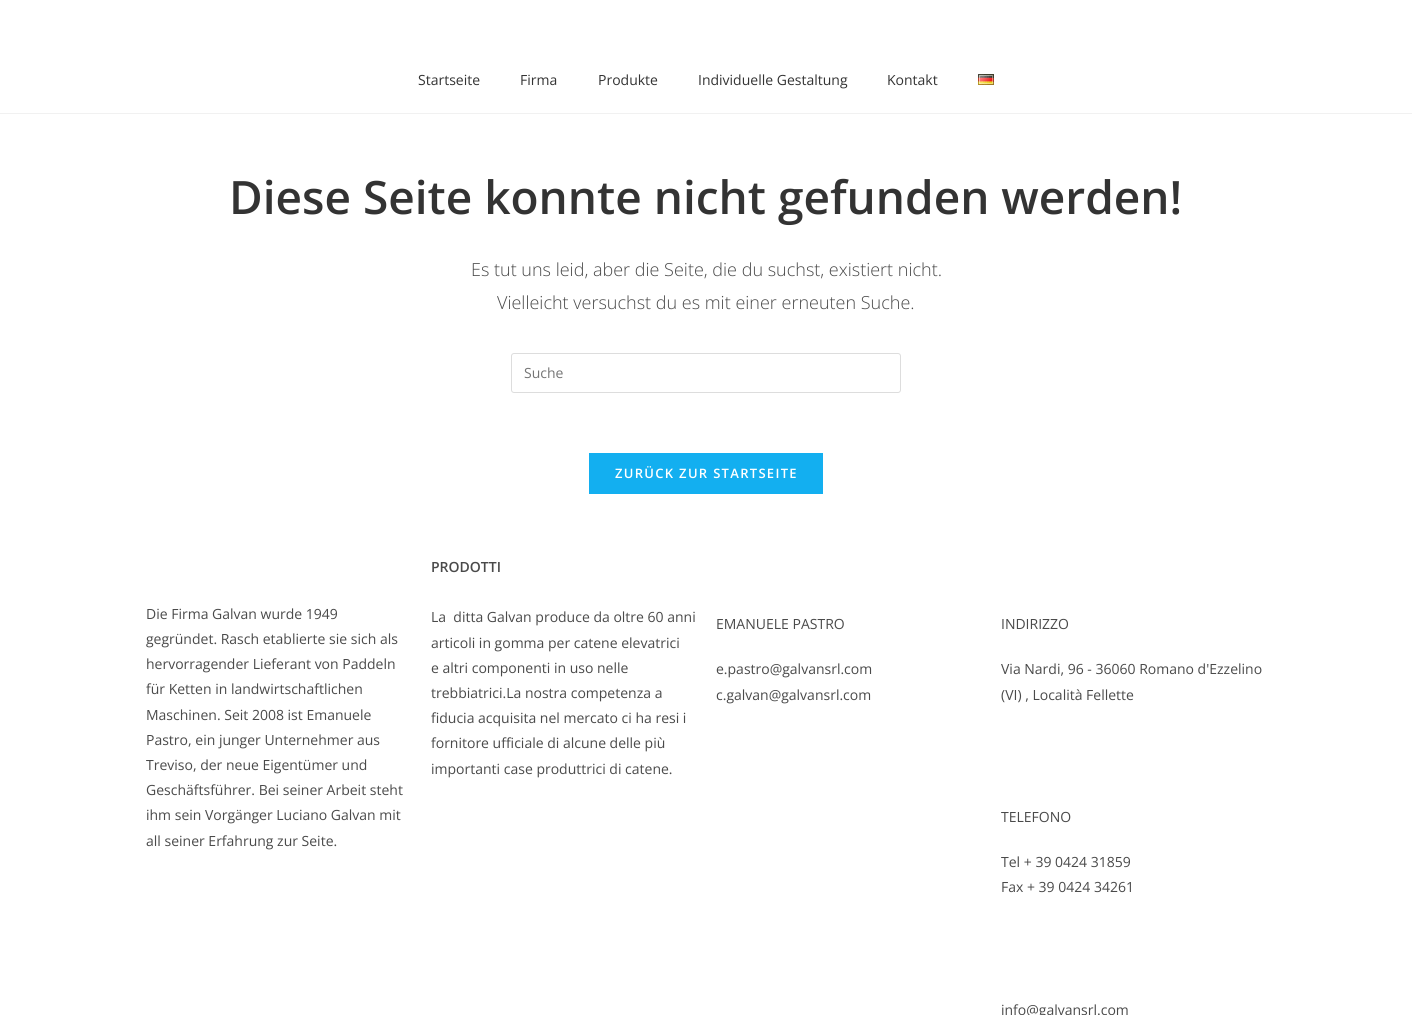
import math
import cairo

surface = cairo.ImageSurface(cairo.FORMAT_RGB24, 1412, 1015)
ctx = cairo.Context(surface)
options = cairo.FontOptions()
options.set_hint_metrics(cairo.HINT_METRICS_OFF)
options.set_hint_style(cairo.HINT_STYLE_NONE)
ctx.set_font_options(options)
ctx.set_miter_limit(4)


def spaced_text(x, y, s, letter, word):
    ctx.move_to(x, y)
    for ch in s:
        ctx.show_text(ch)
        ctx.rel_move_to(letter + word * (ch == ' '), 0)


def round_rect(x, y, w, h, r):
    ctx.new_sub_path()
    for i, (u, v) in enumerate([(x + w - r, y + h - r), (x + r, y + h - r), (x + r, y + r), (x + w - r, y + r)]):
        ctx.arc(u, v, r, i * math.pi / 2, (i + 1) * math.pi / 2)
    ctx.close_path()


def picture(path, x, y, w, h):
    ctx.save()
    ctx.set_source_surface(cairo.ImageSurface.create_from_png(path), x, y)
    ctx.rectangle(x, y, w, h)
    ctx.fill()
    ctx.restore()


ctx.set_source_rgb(1, 1, 1)
ctx.paint()
ctx.set_source_rgb(0.945, 0.945, 0.945)
ctx.rectangle(0, 113, 1412, 1)
ctx.fill()
ctx.select_font_face("Open Sans")
ctx.set_font_size(14)
ctx.set_source_rgb(0.2, 0.2, 0.2)
ctx.move_to(418, 85)
ctx.show_text("Startseite")
ctx.move_to(520, 85)
ctx.show_text("Firma")
ctx.move_to(598, 85)
ctx.show_text("Produkte")
ctx.move_to(698, 85)
ctx.show_text("Individuelle Gestaltung")
ctx.move_to(887, 85)
ctx.show_text("Kontakt")
picture("img1.png", 978, 74, 16, 11)
ctx.select_font_face("Open Sans SemiBold")
ctx.set_font_size(46)
ctx.move_to(229, 214)
ctx.show_text("Diese Seite konnte nicht gefunden werden!")
ctx.select_font_face("Open Sans Light")
ctx.set_font_size(18)
ctx.set_source_rgb(0.29, 0.29, 0.29)
ctx.move_to(471, 276)
ctx.show_text("Es tut uns leid, aber die Seite, die du suchst, existiert nicht.")
ctx.move_to(497, 309)
ctx.show_text("Vielleicht versuchst du es mit einer erneuten Suche.")
round_rect(511.5, 353.5, 389, 39, 2.5)
ctx.set_source_rgb(0.867, 0.867, 0.867)
ctx.set_line_width(1)
ctx.stroke()
ctx.select_font_face("Open Sans")
ctx.set_font_size(14)
ctx.set_source_rgb(0.459, 0.459, 0.459)
ctx.move_to(524, 378)
ctx.show_text("Suche")
ctx.set_source_rgb(0.075, 0.686, 0.941)
ctx.rectangle(589, 453, 234, 41)
ctx.fill()
ctx.select_font_face("Open Sans SemiBold")
ctx.set_font_size(13)
ctx.set_source_rgb(1, 1, 1)
spaced_text(615, 478, "ZURÜCK ZUR STARTSEITE", 1.3, 0)
ctx.select_font_face("Open Sans")
ctx.set_font_size(14)
ctx.set_source_rgb(0.29, 0.29, 0.29)
ctx.move_to(146, 619)
ctx.show_text("Die Firma Galvan wurde 1949")
ctx.move_to(146, 644)
ctx.show_text("gegründet. Rasch etablierte sie sich als")
ctx.move_to(146, 669)
ctx.show_text("hervorragender Lieferant von Paddeln")
ctx.move_to(146, 694)
ctx.show_text("für Ketten in landwirtschaftlichen")
ctx.move_to(146, 720)
ctx.show_text("Maschinen. Seit 2008 ist Emanuele")
ctx.move_to(146, 745)
ctx.show_text("Pastro, ein junger Unternehmer aus")
ctx.move_to(146, 770)
ctx.show_text("Treviso, der neue Eigentümer und")
ctx.move_to(146, 795)
ctx.show_text("Geschäftsführer. Bei seiner Arbeit steht")
ctx.move_to(146, 820)
ctx.show_text("ihm sein Vorgänger Luciano Galvan mit")
ctx.move_to(146, 846)
ctx.show_text("all seiner Erfahrung zur Seite.")
ctx.select_font_face("Open Sans SemiBold")
ctx.move_to(431, 572)
ctx.show_text("PRODOTTI")
ctx.select_font_face("Open Sans")
ctx.move_to(431, 622)
ctx.show_text("La  ditta Galvan produce da oltre 60 anni")
ctx.move_to(431, 648)
ctx.show_text("articoli in gomma per catene elevatrici")
ctx.move_to(431, 673)
ctx.show_text("e altri componenti in uso nelle")
ctx.move_to(431, 698)
ctx.show_text("trebbiatrici.La nostra competenza a")
ctx.move_to(431, 723)
ctx.show_text("fiducia acquisita nel mercato ci ha resi i")
ctx.move_to(431, 748)
ctx.show_text("fornitore ufficiale di alcune delle più")
ctx.move_to(431, 774)
ctx.show_text("importanti case produttrici di catene.")
ctx.move_to(716, 629)
ctx.show_text("EMANUELE PASTRO")
ctx.move_to(716, 674)
ctx.show_text("e.pastro@galvansrl.com")
ctx.move_to(716, 700)
ctx.show_text("c.galvan@galvansrl.com")
ctx.move_to(1001, 629)
ctx.show_text("INDIRIZZO")
ctx.move_to(1001, 674)
ctx.show_text("Via Nardi, 96 - 36060 Romano d'Ezzelino")
ctx.move_to(1001, 700)
ctx.show_text("(VI) , Località Fellette")
ctx.move_to(1001, 822)
ctx.show_text("TELEFONO")
ctx.move_to(1001, 867)
ctx.show_text("Tel + 39 0424 31859")
ctx.move_to(1001, 892)
ctx.show_text("Fax + 39 0424 34261")
ctx.move_to(1001, 1015)
ctx.show_text("info@galvansrl.com")
surface.write_to_png("page.png")
